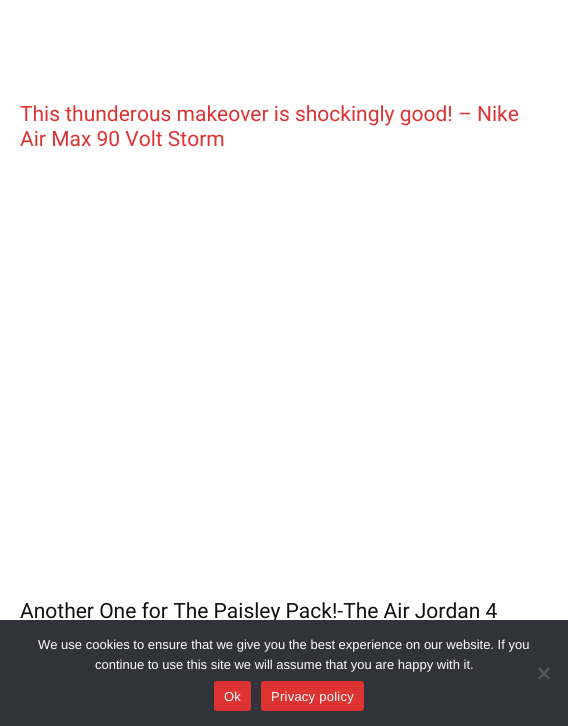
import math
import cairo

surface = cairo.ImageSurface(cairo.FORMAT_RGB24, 568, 726)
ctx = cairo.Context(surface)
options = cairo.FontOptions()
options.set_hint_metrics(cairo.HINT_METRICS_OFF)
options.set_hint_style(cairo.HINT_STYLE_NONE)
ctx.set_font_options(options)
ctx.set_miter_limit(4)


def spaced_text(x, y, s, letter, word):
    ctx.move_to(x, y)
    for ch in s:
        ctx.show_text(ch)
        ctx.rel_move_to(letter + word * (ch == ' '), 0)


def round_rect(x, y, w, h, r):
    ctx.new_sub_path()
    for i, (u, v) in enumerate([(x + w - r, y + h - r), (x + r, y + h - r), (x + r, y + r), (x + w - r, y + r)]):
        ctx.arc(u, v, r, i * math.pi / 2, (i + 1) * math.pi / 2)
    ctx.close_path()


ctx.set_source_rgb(1, 1, 1)
ctx.paint()
ctx.select_font_face("Roboto")
ctx.set_font_size(21)
ctx.set_source_rgb(0.867, 0.2, 0.2)
ctx.move_to(20, 121)
ctx.show_text("This thunderous makeover is shockingly good! – Nike")
ctx.move_to(20, 146)
ctx.show_text("Air Max 90 Volt Storm")
ctx.set_source_rgb(0.067, 0.067, 0.067)
ctx.move_to(20, 618)
ctx.show_text("Another One for The Paisley Pack!-The Air Jordan 4")
ctx.set_source_rgb(0.196, 0.196, 0.227)
ctx.rectangle(0, 620, 568, 106)
ctx.fill()
ctx.select_font_face("Liberation Sans")
ctx.set_font_size(13)
ctx.set_source_rgb(1, 1, 1)
ctx.move_to(38, 649)
ctx.show_text("We use cookies to ensure that we give you the best experience on our website. If you")
ctx.move_to(95, 669)
ctx.show_text("continue to use this site we will assume that you are happy with it.")
ctx.set_source_rgb(0.349, 0.349, 0.365)
ctx.new_path()
ctx.move_to(548.5, 667.5)
ctx.line_to(550, 669)
ctx.line_to(539.5, 679.5)
ctx.line_to(538, 678)
ctx.close_path()
ctx.fill()
ctx.new_path()
ctx.move_to(538, 669)
ctx.line_to(539.5, 667.5)
ctx.line_to(550, 678)
ctx.line_to(548.5, 679.5)
ctx.close_path()
ctx.fill()
ctx.set_source_rgb(0.867, 0.2, 0.2)
round_rect(214, 681, 37, 30, 3)
ctx.fill()
ctx.set_source_rgb(1, 1, 1)
spaced_text(224, 701, "Ok", 0.25, 0)
ctx.set_source_rgb(0.867, 0.2, 0.2)
round_rect(261, 681, 103, 30, 3)
ctx.fill()
ctx.set_source_rgb(1, 1, 1)
spaced_text(271, 701, "Privacy policy", 0.25, 0)
surface.write_to_png("page.png")
